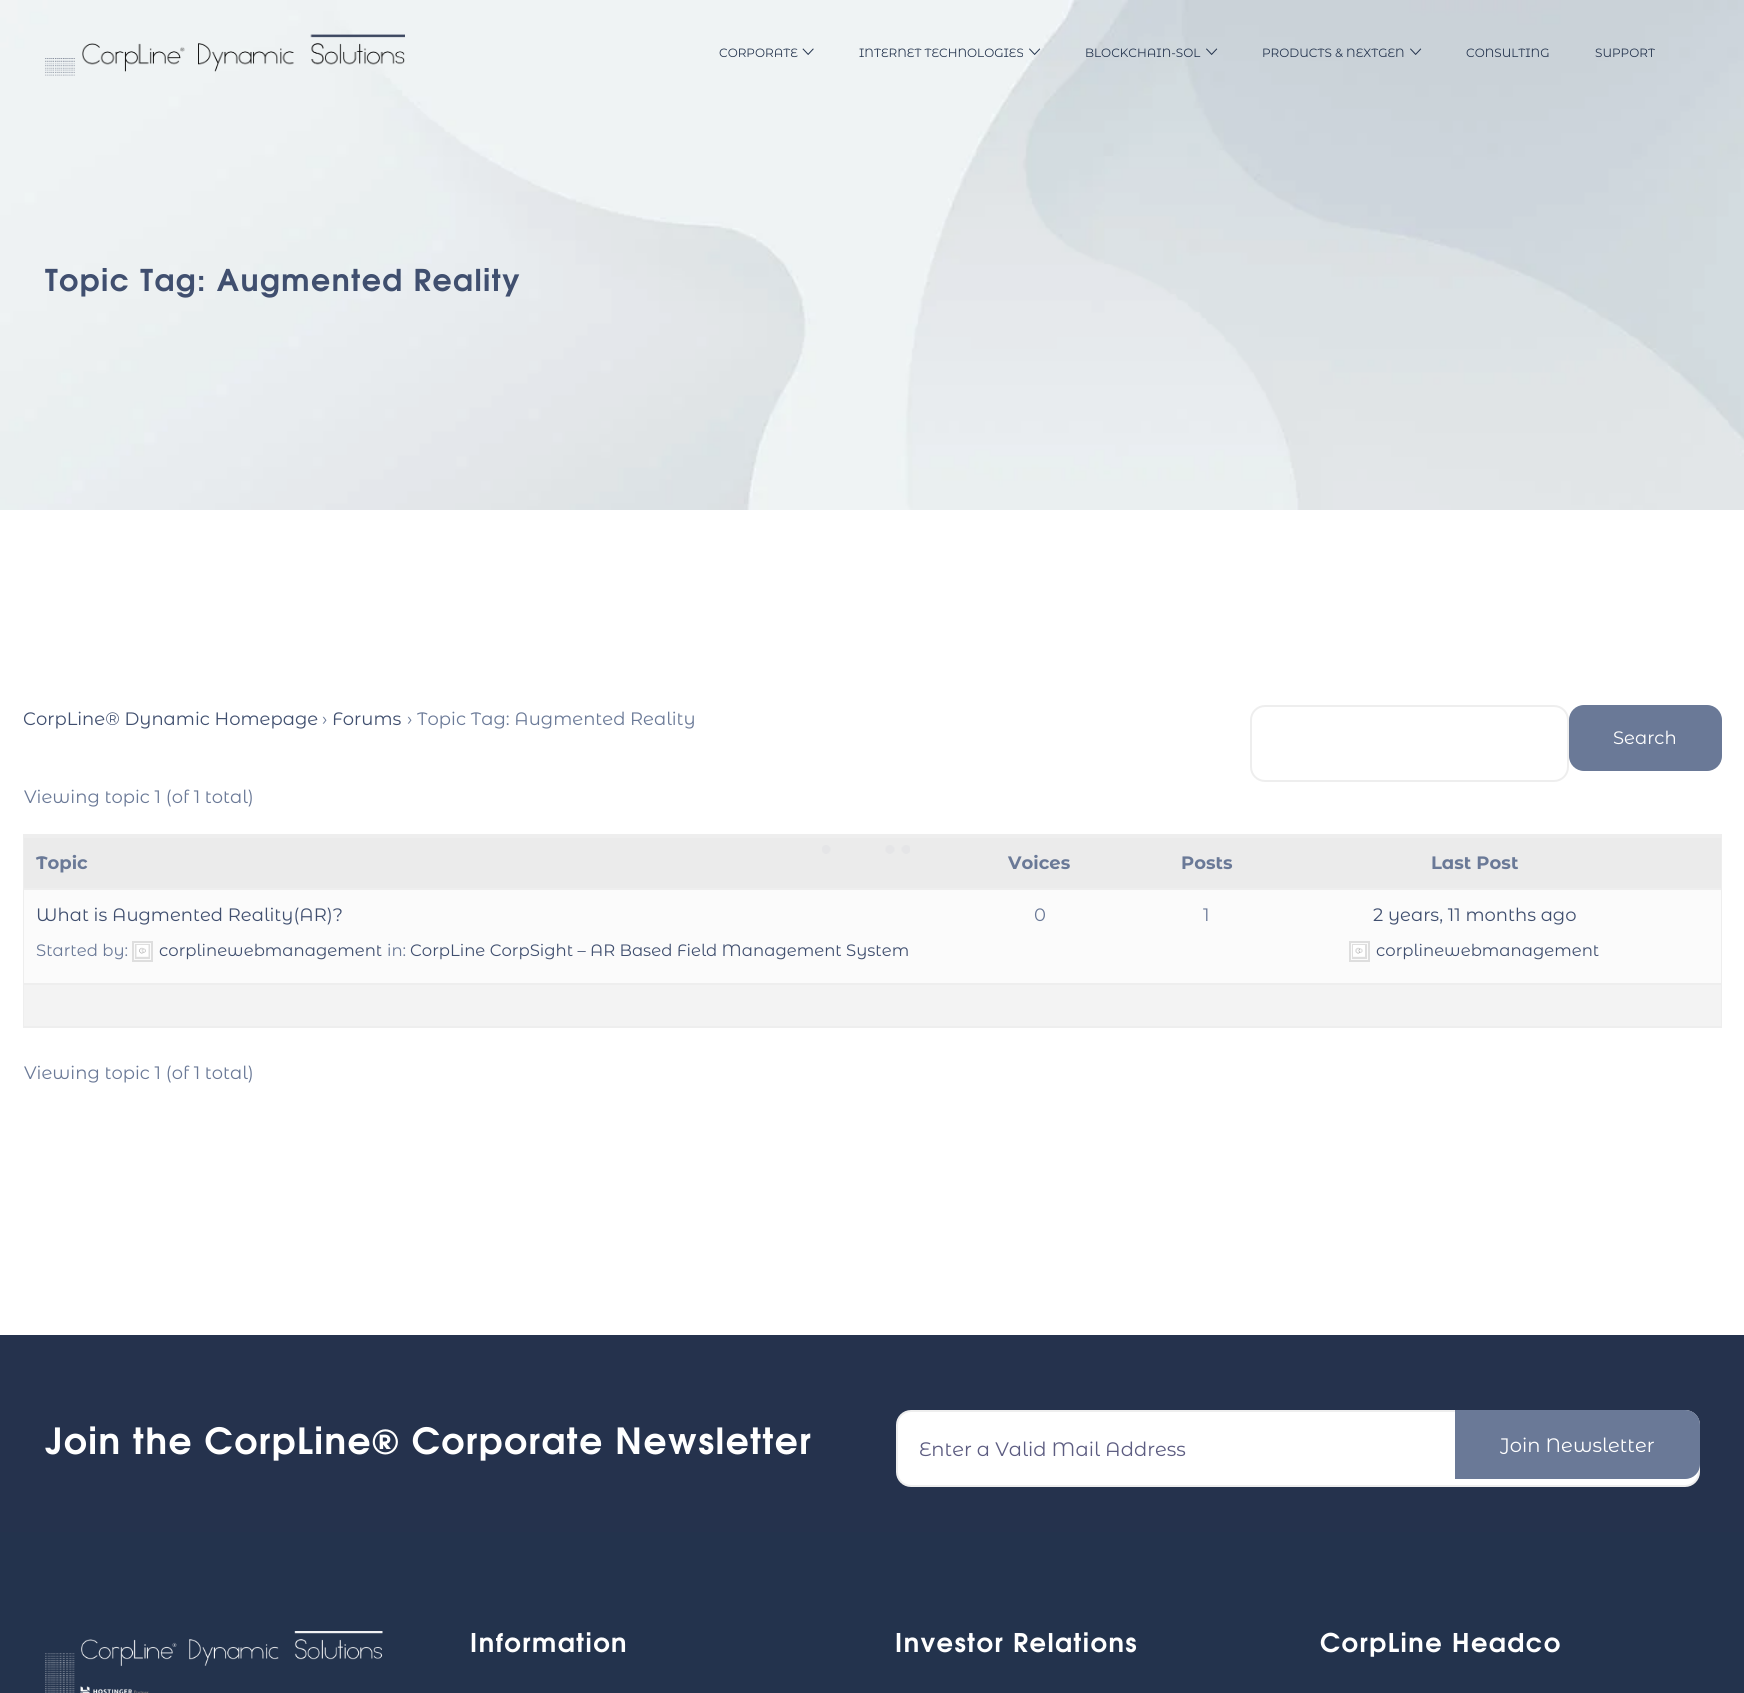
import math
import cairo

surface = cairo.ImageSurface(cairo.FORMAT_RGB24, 1744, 1693)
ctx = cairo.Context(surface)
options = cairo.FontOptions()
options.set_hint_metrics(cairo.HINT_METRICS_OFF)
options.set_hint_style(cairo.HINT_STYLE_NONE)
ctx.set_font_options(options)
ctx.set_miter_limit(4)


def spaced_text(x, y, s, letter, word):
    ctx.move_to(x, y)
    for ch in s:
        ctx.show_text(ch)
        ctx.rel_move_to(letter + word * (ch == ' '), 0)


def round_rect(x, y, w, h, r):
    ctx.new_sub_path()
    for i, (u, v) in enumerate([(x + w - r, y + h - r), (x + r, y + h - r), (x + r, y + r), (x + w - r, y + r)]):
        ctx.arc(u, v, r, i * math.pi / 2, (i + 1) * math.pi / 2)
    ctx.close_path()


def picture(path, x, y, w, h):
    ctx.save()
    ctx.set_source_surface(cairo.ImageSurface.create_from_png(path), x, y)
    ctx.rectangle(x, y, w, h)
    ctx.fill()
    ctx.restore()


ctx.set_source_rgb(1, 1, 1)
ctx.paint()
picture("img6.png", 0, 0, 1744, 510)
picture("img1.png", 45, 34, 360, 42)
ctx.select_font_face("Montserrat Alternates")
ctx.set_font_size(12)
ctx.set_source_rgb(0.137, 0.2, 0.302)
ctx.move_to(719, 57)
ctx.show_text("CORPORATE")
picture("img2.png", 802, 48, 12, 7)
ctx.move_to(859, 57)
ctx.show_text("INTERNET TECHNOLOGIES")
picture("img3.png", 1029, 48, 12, 7)
ctx.move_to(1085, 57)
ctx.show_text("BLOCKCHAIN-SOL")
picture("img4.png", 1206, 48, 12, 7)
ctx.move_to(1262, 57)
ctx.show_text("PRODUCTS & NEXTGEN")
picture("img5.png", 1410, 48, 12, 7)
ctx.move_to(1466, 57)
ctx.show_text("CONSULTING")
ctx.move_to(1595, 57)
ctx.show_text("SUPPORT")
ctx.select_font_face("TeX Gyre Adventor", cairo.FONT_SLANT_NORMAL, cairo.FONT_WEIGHT_BOLD)
ctx.set_font_size(30)
ctx.set_source_rgb(0.251, 0.31, 0.435)
spaced_text(45, 291, "Topic Tag: Augmented Reality", 1.5, 0)
ctx.select_font_face("Montserrat Alternates")
ctx.set_font_size(18)
ctx.move_to(23, 725)
ctx.show_text("CorpLine® Dynamic Homepage")
ctx.set_source_rgb(0.416, 0.475, 0.592)
ctx.move_to(322, 725)
ctx.show_text("›")
ctx.set_source_rgb(0.251, 0.31, 0.435)
ctx.move_to(332, 725)
ctx.show_text("Forums")
ctx.set_source_rgb(0.416, 0.475, 0.592)
ctx.move_to(407, 725)
ctx.show_text("› Topic Tag: Augmented Reality")
round_rect(1251, 706, 317, 75, 14)
ctx.set_source_rgb(0.933, 0.933, 0.933)
ctx.stroke()
ctx.set_source_rgb(0.416, 0.475, 0.592)
round_rect(1569, 705, 153, 66, 15)
ctx.fill()
ctx.set_source_rgb(1, 1, 1)
ctx.move_to(1613, 744)
ctx.show_text("Search")
ctx.set_source_rgb(0.416, 0.475, 0.592)
ctx.move_to(24, 803)
ctx.show_text("Viewing topic 1 (of 1 total)")
ctx.rectangle(24, 835, 1697, 192)
ctx.set_source_rgb(0.933, 0.933, 0.933)
ctx.stroke()
ctx.set_source_rgb(0.918, 0.918, 0.918)
ctx.rectangle(24, 838, 1697, 50)
ctx.fill()
ctx.set_source_rgb(0.933, 0.933, 0.933)
ctx.rectangle(24, 836, 1697, 2)
ctx.fill()
ctx.select_font_face("Montserrat Alternates", cairo.FONT_SLANT_NORMAL, cairo.FONT_WEIGHT_BOLD)
ctx.set_source_rgb(0.416, 0.475, 0.592)
ctx.move_to(36, 869)
ctx.show_text("Topic")
ctx.move_to(1008, 869)
ctx.show_text("Voices")
ctx.move_to(1181, 869)
ctx.show_text("Posts")
ctx.move_to(1431, 869)
ctx.show_text("Last Post")
ctx.set_source_rgb(0.984, 0.984, 0.984)
ctx.rectangle(24, 890, 1697, 93)
ctx.fill()
ctx.set_source_rgb(0.933, 0.933, 0.933)
ctx.rectangle(24, 888, 1697, 2)
ctx.fill()
ctx.select_font_face("Montserrat Alternates")
ctx.set_source_rgb(0.251, 0.31, 0.435)
ctx.move_to(36, 921)
ctx.show_text("What is Augmented Reality(AR)?")
ctx.set_font_size(16.5)
ctx.set_source_rgb(0.416, 0.475, 0.592)
ctx.move_to(36, 956)
ctx.show_text("Started by:")
ctx.rectangle(133, 942, 19, 19)
ctx.set_source_rgb(0.871, 0.871, 0.871)
ctx.stroke()
ctx.rectangle(136, 945, 13, 13)
ctx.stroke()
picture("img7.png", 136, 945, 13, 12)
ctx.set_source_rgb(0.251, 0.31, 0.435)
ctx.move_to(159, 956)
ctx.show_text("corplinewebmanagement")
ctx.set_source_rgb(0.416, 0.475, 0.592)
ctx.move_to(387, 956)
ctx.show_text("in:")
ctx.set_source_rgb(0.251, 0.31, 0.435)
ctx.move_to(410, 956)
ctx.show_text("CorpLine CorpSight – AR Based Field Management System")
ctx.set_font_size(18)
ctx.set_source_rgb(0.416, 0.475, 0.592)
ctx.move_to(1034, 921)
ctx.show_text("0")
ctx.move_to(1203, 921)
ctx.show_text("1")
ctx.set_source_rgb(0.251, 0.31, 0.435)
ctx.move_to(1373, 921)
ctx.show_text("2 years, 11 months ago")
ctx.rectangle(1350, 942, 19, 19)
ctx.set_source_rgb(0.871, 0.871, 0.871)
ctx.stroke()
ctx.rectangle(1353, 945, 13, 13)
ctx.stroke()
picture("img8.png", 1353, 945, 12, 12)
ctx.set_font_size(16.5)
ctx.set_source_rgb(0.251, 0.31, 0.435)
ctx.move_to(1376, 956)
ctx.show_text("corplinewebmanagement")
ctx.set_source_rgb(0.953, 0.953, 0.953)
ctx.rectangle(24, 985, 1697, 41)
ctx.fill()
ctx.set_source_rgb(0.933, 0.933, 0.933)
ctx.rectangle(24, 983, 1697, 2)
ctx.fill()
ctx.set_font_size(18)
ctx.set_source_rgb(0.416, 0.475, 0.592)
ctx.move_to(24, 1079)
ctx.show_text("Viewing topic 1 (of 1 total)")
ctx.set_source_rgb(0.137, 0.2, 0.302)
ctx.rectangle(0, 1532, 1744, 161)
ctx.fill()
ctx.set_source_rgb(0.145, 0.196, 0.302)
ctx.rectangle(0, 1335, 1744, 197)
ctx.fill()
ctx.select_font_face("TeX Gyre Adventor", cairo.FONT_SLANT_NORMAL, cairo.FONT_WEIGHT_BOLD)
ctx.set_font_size(36)
ctx.set_source_rgb(1, 1, 1)
spaced_text(45, 1454, "Join the CorpLine® Corporate Newsletter", 1.5, 0)
round_rect(897, 1411, 802, 75, 14)
ctx.fill_preserve()
ctx.set_source_rgb(0.933, 0.933, 0.933)
ctx.stroke()
ctx.select_font_face("Montserrat Alternates")
ctx.set_font_size(19.5)
ctx.set_source_rgb(0.361, 0.361, 0.506)
ctx.move_to(919, 1456)
ctx.show_text("Enter a Valid Mail Address")
ctx.set_source_rgb(0.416, 0.475, 0.592)
ctx.new_path()
ctx.move_to(1455, 1410)
ctx.line_to(1685, 1410)
ctx.curve_to(1693.5, 1410, 1700, 1416.5, 1700, 1425)
ctx.line_to(1700, 1464)
ctx.curve_to(1700, 1472.5, 1693.5, 1479, 1685, 1479)
ctx.line_to(1455, 1479)
ctx.close_path()
ctx.fill()
ctx.set_source_rgb(1, 1, 1)
ctx.move_to(1500, 1452)
ctx.show_text("Join Newsletter")
picture("img9.png", 45, 1631, 338, 62)
ctx.select_font_face("TeX Gyre Adventor", cairo.FONT_SLANT_NORMAL, cairo.FONT_WEIGHT_BOLD)
ctx.set_font_size(25.75)
spaced_text(470, 1652, "Information", 1.5, 0)
spaced_text(895, 1652, "Investor Relations", 1.5, 0)
spaced_text(1320, 1652, "CorpLine Headco", 1.5, 0)
picture("img10.png", 822, 845, 88, 9)
surface.write_to_png("page.png")
